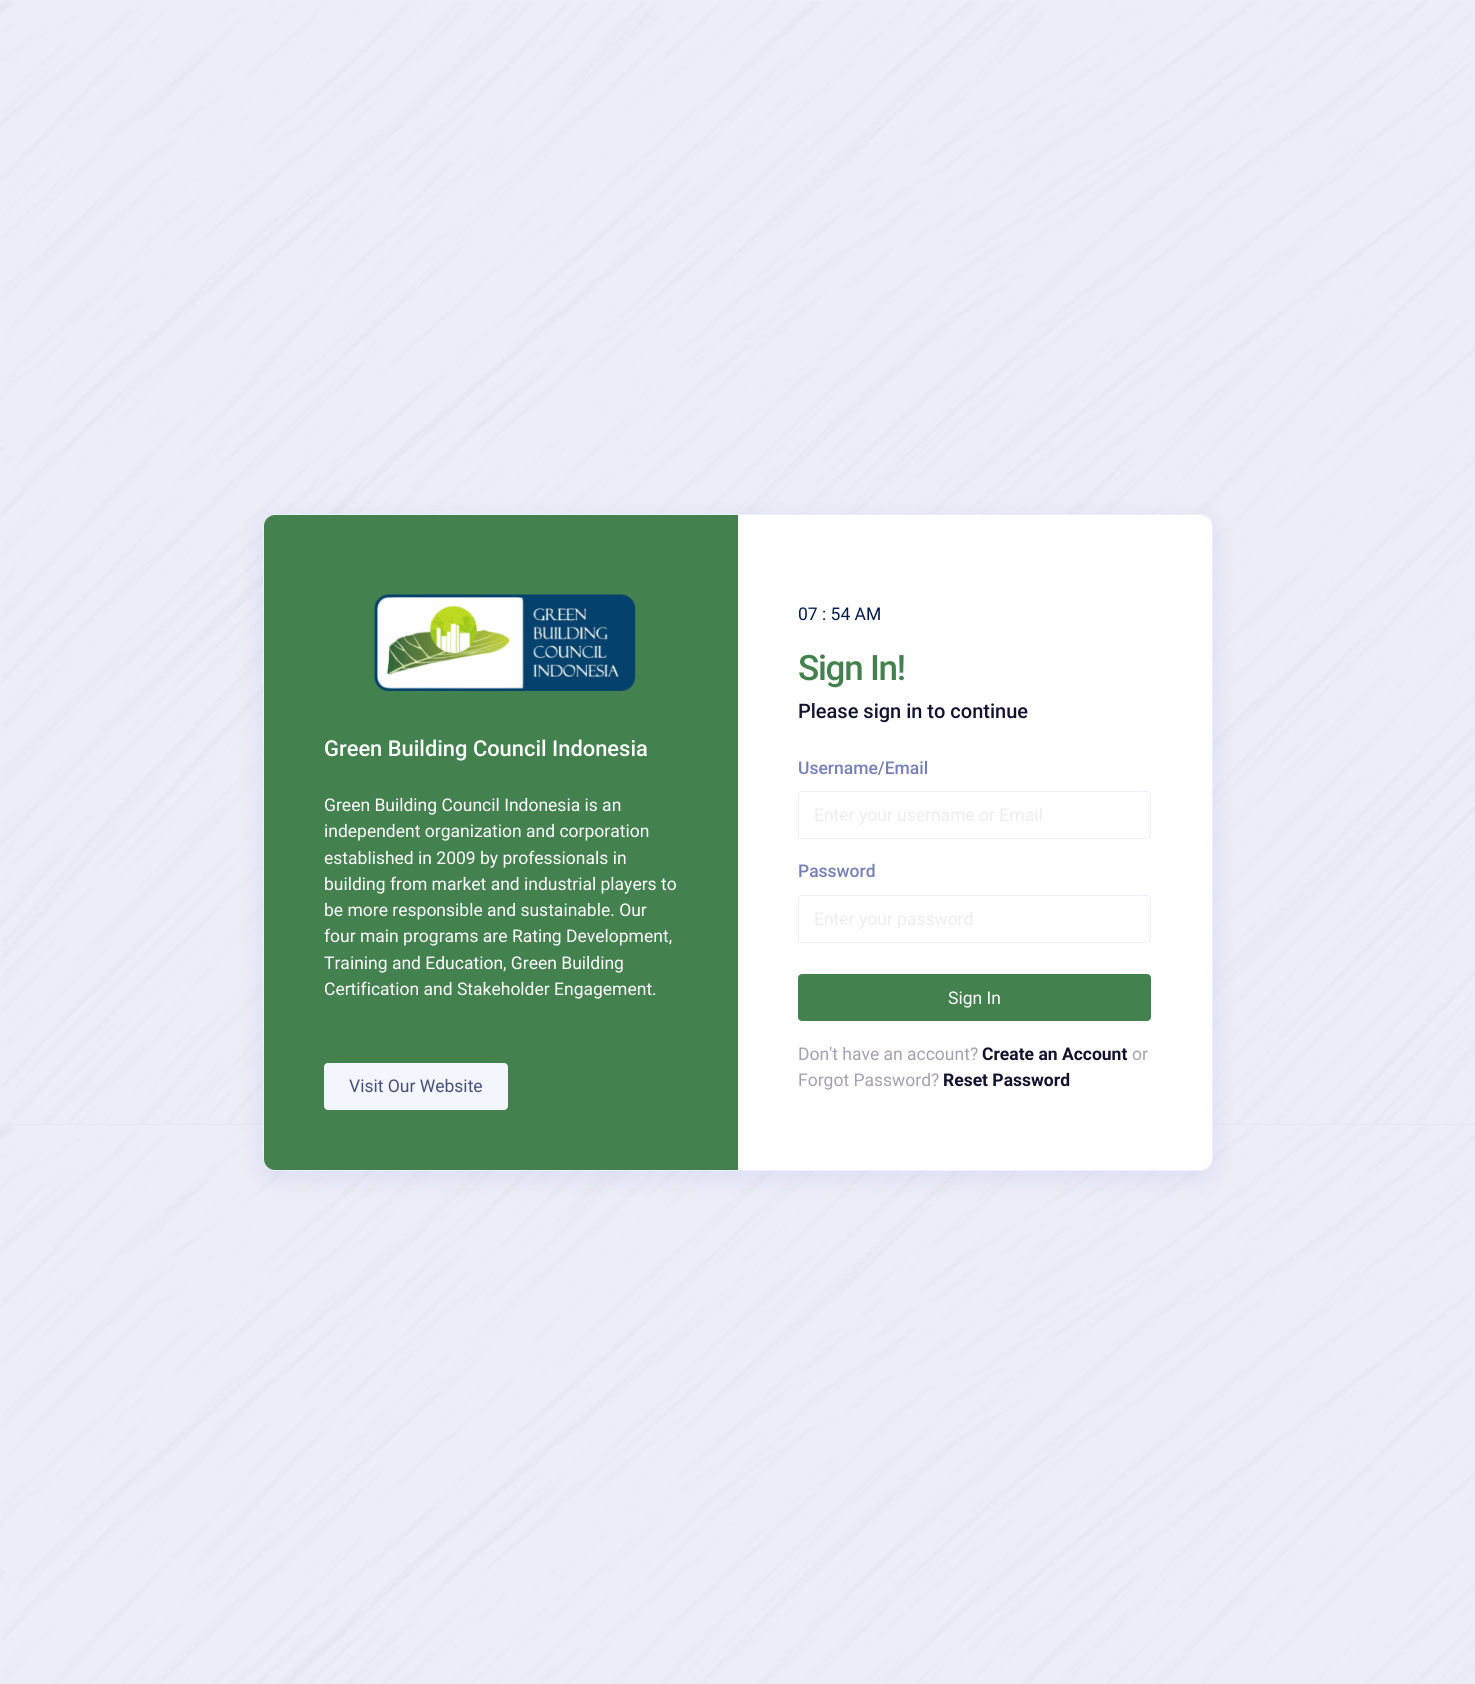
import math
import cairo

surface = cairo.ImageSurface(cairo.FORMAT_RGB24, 1475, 1684)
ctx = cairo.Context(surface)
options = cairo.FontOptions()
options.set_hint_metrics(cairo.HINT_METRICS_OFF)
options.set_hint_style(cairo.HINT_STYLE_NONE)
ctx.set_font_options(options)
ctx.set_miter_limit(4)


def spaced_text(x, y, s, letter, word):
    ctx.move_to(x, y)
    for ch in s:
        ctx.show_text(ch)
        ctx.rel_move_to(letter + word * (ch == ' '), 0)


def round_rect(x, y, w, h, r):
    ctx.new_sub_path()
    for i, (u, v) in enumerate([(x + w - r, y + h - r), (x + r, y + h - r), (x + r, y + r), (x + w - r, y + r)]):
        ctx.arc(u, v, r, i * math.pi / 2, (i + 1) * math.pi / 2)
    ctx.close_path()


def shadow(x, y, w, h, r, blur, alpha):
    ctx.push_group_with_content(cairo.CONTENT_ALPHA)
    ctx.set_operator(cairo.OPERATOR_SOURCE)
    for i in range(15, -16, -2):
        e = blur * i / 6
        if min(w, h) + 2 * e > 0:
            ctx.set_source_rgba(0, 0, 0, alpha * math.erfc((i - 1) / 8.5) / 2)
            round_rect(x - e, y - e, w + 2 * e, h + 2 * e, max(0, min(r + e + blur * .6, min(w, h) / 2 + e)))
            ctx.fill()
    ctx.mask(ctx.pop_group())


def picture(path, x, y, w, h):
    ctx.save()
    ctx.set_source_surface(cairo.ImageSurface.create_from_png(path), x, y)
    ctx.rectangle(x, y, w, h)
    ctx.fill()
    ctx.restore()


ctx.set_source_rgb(1, 1, 1)
ctx.paint()
picture("img1.png", 0, 0, 1475, 1684)
ctx.set_source_rgb(0.314, 0.4, 0.878)
shadow(256, 514, 963, 670, 19, 9.5, 0.08)
ctx.set_source_rgb(1, 1, 1)
round_rect(263.5, 514.5, 949, 656, 12.5)
ctx.fill_preserve()
ctx.set_source_rgb(0.929, 0.933, 0.969)
ctx.set_line_width(1)
ctx.stroke()
picture("img2.png", 264, 515, 11, 655)
ctx.set_source_rgb(0.263, 0.506, 0.306)
ctx.new_path()
ctx.move_to(275, 515)
ctx.line_to(738, 515)
ctx.line_to(738, 1170)
ctx.line_to(275, 1170)
ctx.curve_to(269, 1170, 264, 1165, 264, 1159)
ctx.line_to(264, 526)
ctx.curve_to(264, 520, 269, 515, 275, 515)
ctx.close_path()
ctx.fill()
picture("img3.png", 374, 594, 262, 97)
ctx.select_font_face("Roboto Medium")
ctx.set_font_size(21.9)
ctx.set_source_rgb(1, 1, 1)
ctx.move_to(324, 756)
ctx.show_text("Green Building Council Indonesia")
ctx.select_font_face("Roboto")
ctx.set_font_size(17.5)
ctx.move_to(324, 811)
ctx.show_text("Green Building Council Indonesia is an")
ctx.move_to(324, 837)
ctx.show_text("independent organization and corporation")
ctx.move_to(324, 864)
ctx.show_text("established in 2009 by professionals in")
ctx.move_to(324, 890)
ctx.show_text("building from market and industrial players to")
ctx.move_to(324, 916)
ctx.show_text("be more responsible and sustainable. Our")
ctx.move_to(324, 942)
ctx.show_text("four main programs are Rating Development,")
ctx.move_to(324, 969)
ctx.show_text("Training and Education, Green Building")
ctx.move_to(324, 995)
ctx.show_text("Certification and Stakeholder Engagement.")
ctx.set_source_rgb(0.957, 0.961, 0.992)
round_rect(324, 1063, 184, 47, 4)
ctx.fill()
ctx.set_source_rgb(0.282, 0.314, 0.475)
ctx.move_to(349, 1092)
ctx.show_text("Visit Our Website")
ctx.set_source_rgb(0.012, 0.106, 0.306)
ctx.move_to(798, 620)
ctx.show_text("07 : 54 AM")
ctx.select_font_face("Roboto Medium")
ctx.set_font_size(35)
ctx.set_source_rgb(0.263, 0.506, 0.306)
spaced_text(798, 680, "Sign In!", -1.25, 0)
ctx.set_font_size(20)
ctx.set_source_rgb(0.078, 0.067, 0.176)
ctx.move_to(798, 718)
ctx.show_text("Please sign in to continue")
ctx.set_font_size(17.5)
ctx.set_source_rgb(0.459, 0.498, 0.71)
ctx.move_to(798, 774)
ctx.show_text("Username/Email")
round_rect(798.5, 791.5, 352, 47, 3.5)
ctx.set_source_rgb(0.929, 0.933, 0.969)
ctx.stroke()
ctx.select_font_face("Roboto")
ctx.set_source_rgb(0.929, 0.925, 0.937)
ctx.move_to(814, 821)
ctx.show_text("Enter your username or Email")
ctx.select_font_face("Roboto Medium")
ctx.set_source_rgb(0.459, 0.498, 0.71)
ctx.move_to(798, 877)
ctx.show_text("Password")
round_rect(798.5, 895.5, 352, 47, 3.5)
ctx.set_source_rgb(0.929, 0.933, 0.969)
ctx.stroke()
ctx.select_font_face("Roboto")
ctx.set_source_rgb(0.929, 0.925, 0.937)
ctx.move_to(814, 925)
ctx.show_text("Enter your password")
ctx.set_source_rgb(0.263, 0.506, 0.306)
round_rect(798, 974, 353, 47, 4)
ctx.fill()
ctx.set_source_rgb(1, 1, 1)
ctx.move_to(948, 1004)
ctx.show_text("Sign In")
ctx.set_source_rgb(0.647, 0.627, 0.694)
ctx.move_to(798, 1060)
ctx.show_text("Don't have an account?")
ctx.select_font_face("Roboto", cairo.FONT_SLANT_NORMAL, cairo.FONT_WEIGHT_BOLD)
ctx.set_source_rgb(0.078, 0.067, 0.176)
ctx.move_to(982, 1060)
ctx.show_text("Create an Account")
ctx.select_font_face("Roboto")
ctx.set_source_rgb(0.647, 0.627, 0.694)
ctx.move_to(1132, 1060)
ctx.show_text("or")
ctx.move_to(798, 1086)
ctx.show_text("Forgot Password?")
ctx.select_font_face("Roboto", cairo.FONT_SLANT_NORMAL, cairo.FONT_WEIGHT_BOLD)
ctx.set_source_rgb(0.078, 0.067, 0.176)
ctx.move_to(943, 1086)
ctx.show_text("Reset Password")
surface.write_to_png("page.png")
